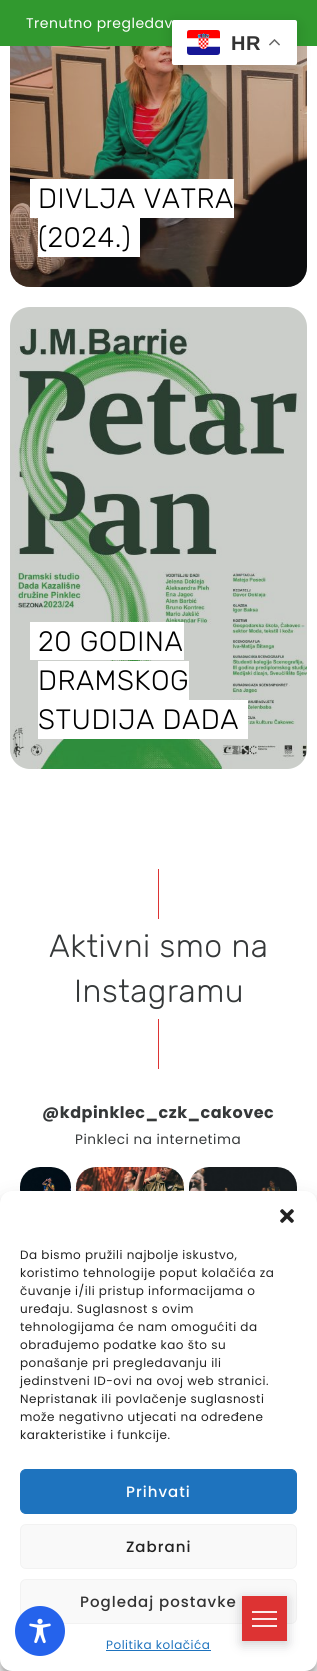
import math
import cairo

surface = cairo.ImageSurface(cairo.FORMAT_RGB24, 317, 1671)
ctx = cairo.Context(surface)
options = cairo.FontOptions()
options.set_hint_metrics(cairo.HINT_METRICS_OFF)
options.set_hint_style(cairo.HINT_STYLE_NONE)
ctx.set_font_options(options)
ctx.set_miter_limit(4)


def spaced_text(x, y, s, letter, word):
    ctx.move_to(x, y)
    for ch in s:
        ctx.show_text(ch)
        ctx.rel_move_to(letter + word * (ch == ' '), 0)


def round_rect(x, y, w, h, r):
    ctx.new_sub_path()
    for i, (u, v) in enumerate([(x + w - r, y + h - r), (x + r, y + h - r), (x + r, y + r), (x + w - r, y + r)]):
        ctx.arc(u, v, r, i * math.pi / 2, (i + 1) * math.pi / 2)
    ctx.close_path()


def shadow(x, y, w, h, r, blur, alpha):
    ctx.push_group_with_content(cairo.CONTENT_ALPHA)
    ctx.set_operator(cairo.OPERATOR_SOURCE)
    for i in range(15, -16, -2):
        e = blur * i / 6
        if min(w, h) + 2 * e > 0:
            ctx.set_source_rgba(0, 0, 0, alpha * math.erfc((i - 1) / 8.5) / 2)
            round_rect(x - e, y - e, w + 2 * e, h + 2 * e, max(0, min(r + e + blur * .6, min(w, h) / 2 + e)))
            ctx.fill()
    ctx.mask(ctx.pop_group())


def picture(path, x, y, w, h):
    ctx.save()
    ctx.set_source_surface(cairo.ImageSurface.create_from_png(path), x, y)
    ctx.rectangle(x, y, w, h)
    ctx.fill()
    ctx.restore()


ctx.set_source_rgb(1, 1, 1)
ctx.paint()
picture("img1.png", 10, 46, 297, 241)
ctx.set_source_rgba(0.2, 0.216, 0.227, 0.23)
round_rect(10, -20, 297, 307, 20)
ctx.fill()
ctx.set_source_rgb(0.192, 0.6, 0.184)
ctx.rectangle(0, 0, 317, 46)
ctx.fill()
ctx.select_font_face("Poppins")
ctx.set_font_size(14)
ctx.set_source_rgb(1, 1, 1)
spaced_text(26, 28, "Trenutno pregledav", 0.5, 0)
ctx.rectangle(30, 179, 204, 39)
ctx.fill()
ctx.select_font_face("Rubik Light")
ctx.set_font_size(28)
ctx.set_source_rgb(0, 0, 0)
spaced_text(38, 208, "DIVLJA VATRA", 0.5, 0)
ctx.set_source_rgb(1, 1, 1)
ctx.rectangle(38, 218, 102, 39)
ctx.fill()
ctx.set_source_rgb(0, 0, 0)
spaced_text(38, 247, "(2024.)", 0.5, 0)
picture("img2.png", 10, 307, 297, 462)
ctx.set_source_rgba(0.2, 0.216, 0.227, 0.23)
round_rect(10, 307, 297, 462, 20)
ctx.fill()
ctx.set_source_rgb(1, 1, 1)
ctx.rectangle(30, 622, 154, 38)
ctx.fill()
ctx.set_source_rgb(0, 0, 0)
spaced_text(38, 651, "20 GODINA", 0.5, 0)
ctx.set_source_rgb(1, 1, 1)
ctx.rectangle(38, 661, 151, 39)
ctx.fill()
ctx.set_source_rgb(0, 0, 0)
spaced_text(38, 690, "DRAMSKOG", 0.5, 0)
ctx.set_source_rgb(1, 1, 1)
ctx.rectangle(38, 700, 210, 39)
ctx.fill()
ctx.set_source_rgb(0, 0, 0)
spaced_text(38, 729, "STUDIJA DADA", 0.5, 0)
ctx.set_source_rgb(0.867, 0.2, 0.2)
ctx.rectangle(158, 869, 1, 50)
ctx.fill()
ctx.set_font_size(32)
ctx.set_source_rgb(0.208, 0.22, 0.224)
spaced_text(49, 957, "Aktivni smo na", 0.5, 0)
spaced_text(74, 1002, "Instagramu", 0.5, 0)
ctx.set_source_rgb(0.867, 0.2, 0.2)
ctx.rectangle(158, 1019, 1, 50)
ctx.fill()
ctx.select_font_face("Poppins", cairo.FONT_SLANT_NORMAL, cairo.FONT_WEIGHT_BOLD)
ctx.set_font_size(16)
ctx.set_source_rgb(0.208, 0.22, 0.224)
spaced_text(42, 1118, "@kdpinklec_czk_cakovec", 0.5, 0)
ctx.select_font_face("Poppins")
ctx.set_font_size(13.6)
spaced_text(75, 1144, "Pinkleci na internetima", 0.5, 0)
picture("img3.png", 20, 1167, 51, 24)
picture("img4.png", 76, 1167, 108, 24)
picture("img5.png", 189, 1167, 108, 24)
ctx.set_source_rgb(0, 0, 0)
shadow(172, 25, 125, 45, 2, 7.5, 0.15)
ctx.set_source_rgb(1, 1, 1)
round_rect(172, 20, 125, 45, 2)
ctx.fill()
picture("img6.png", 187, 30, 33, 25)
ctx.select_font_face("Liberation Sans", cairo.FONT_SLANT_NORMAL, cairo.FONT_WEIGHT_BOLD)
ctx.set_font_size(20)
ctx.set_source_rgb(0.2, 0.2, 0.2)
spaced_text(231, 50, "HR", 0.5, 0)
picture("img7.png", 269, 39, 11, 7)
ctx.set_source_rgb(0, 0, 0)
shadow(0, 1197, 317, 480, 12, 3, 0.23)
shadow(0, 1201, 317, 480, 12, 10, 0.19)
ctx.set_source_rgb(1, 1, 1)
round_rect(0, 1191, 317, 480, 12)
ctx.fill()
picture("img8.png", 280, 1209, 14, 14)
ctx.select_font_face("Poppins")
ctx.set_font_size(12)
ctx.set_source_rgb(0.133, 0.133, 0.133)
spaced_text(20, 1259, "Da bismo pružili najbolje iskustvo,", 0.5, 0)
spaced_text(20, 1277, "koristimo tehnologije poput kolačića za", 0.5, 0)
spaced_text(20, 1295, "čuvanje i/ili pristup informacijama o", 0.5, 0)
spaced_text(20, 1313, "uređaju. Suglasnost s ovim", 0.5, 0)
spaced_text(20, 1331, "tehnologijama će nam omogućiti da", 0.5, 0)
spaced_text(20, 1349, "obrađujemo podatke kao što su", 0.5, 0)
spaced_text(20, 1367, "ponašanje pri pregledavanju ili", 0.5, 0)
spaced_text(20, 1385, "jedinstveni ID-ovi na ovoj web stranici.", 0.5, 0)
spaced_text(20, 1403, "Nepristanak ili povlačenje suglasnosti", 0.5, 0)
spaced_text(20, 1421, "može negativno utjecati na određene", 0.5, 0)
spaced_text(20, 1439, "karakteristike i funkcije.", 0.5, 0)
ctx.set_source_rgb(0.118, 0.451, 0.745)
round_rect(20.5, 1469.5, 276, 44, 5.5)
ctx.fill_preserve()
ctx.set_line_width(1)
ctx.stroke()
ctx.select_font_face("Poppins Medium")
ctx.set_font_size(15)
ctx.set_source_rgb(1, 1, 1)
spaced_text(126, 1497, "Prihvati", 1, 0)
ctx.set_source_rgb(0.976, 0.976, 0.976)
round_rect(20.5, 1524.5, 276, 44, 5.5)
ctx.fill_preserve()
ctx.set_source_rgb(0.949, 0.949, 0.949)
ctx.stroke()
ctx.set_source_rgb(0.133, 0.133, 0.133)
spaced_text(126, 1552, "Zabrani", 1, 0)
ctx.set_source_rgb(0.976, 0.976, 0.976)
round_rect(20.5, 1579.5, 276, 44, 5.5)
ctx.fill_preserve()
ctx.set_source_rgb(0.949, 0.949, 0.949)
ctx.stroke()
ctx.set_source_rgb(0.2, 0.2, 0.2)
spaced_text(80, 1607, "Pogledaj postavke", 1, 0)
ctx.select_font_face("Poppins")
ctx.set_font_size(12)
ctx.set_source_rgb(0.118, 0.451, 0.745)
spaced_text(106, 1649, "Politika kolačića", 0.5, 0)
ctx.rectangle(106, 1650, 105, 1)
ctx.fill()
ctx.set_source_rgb(0.145, 0.388, 0.922)
ctx.arc(40, 1631, 25, 0, 2 * math.pi)
ctx.fill()
picture("img9.png", 29, 1618, 22, 26)
ctx.set_source_rgb(0.157, 0.161, 0.184)
shadow(242, 1599, 45, 45, 0, 6, 0.24)
ctx.set_source_rgb(0.867, 0.2, 0.2)
ctx.rectangle(242, 1596, 45, 45)
ctx.fill()
ctx.set_source_rgb(0.988, 0.922, 0.922)
ctx.rectangle(252, 1611, 25, 2)
ctx.fill()
ctx.rectangle(252, 1618, 25, 2)
ctx.fill()
ctx.rectangle(252, 1625, 25, 2)
ctx.fill()
surface.write_to_png("page.png")
